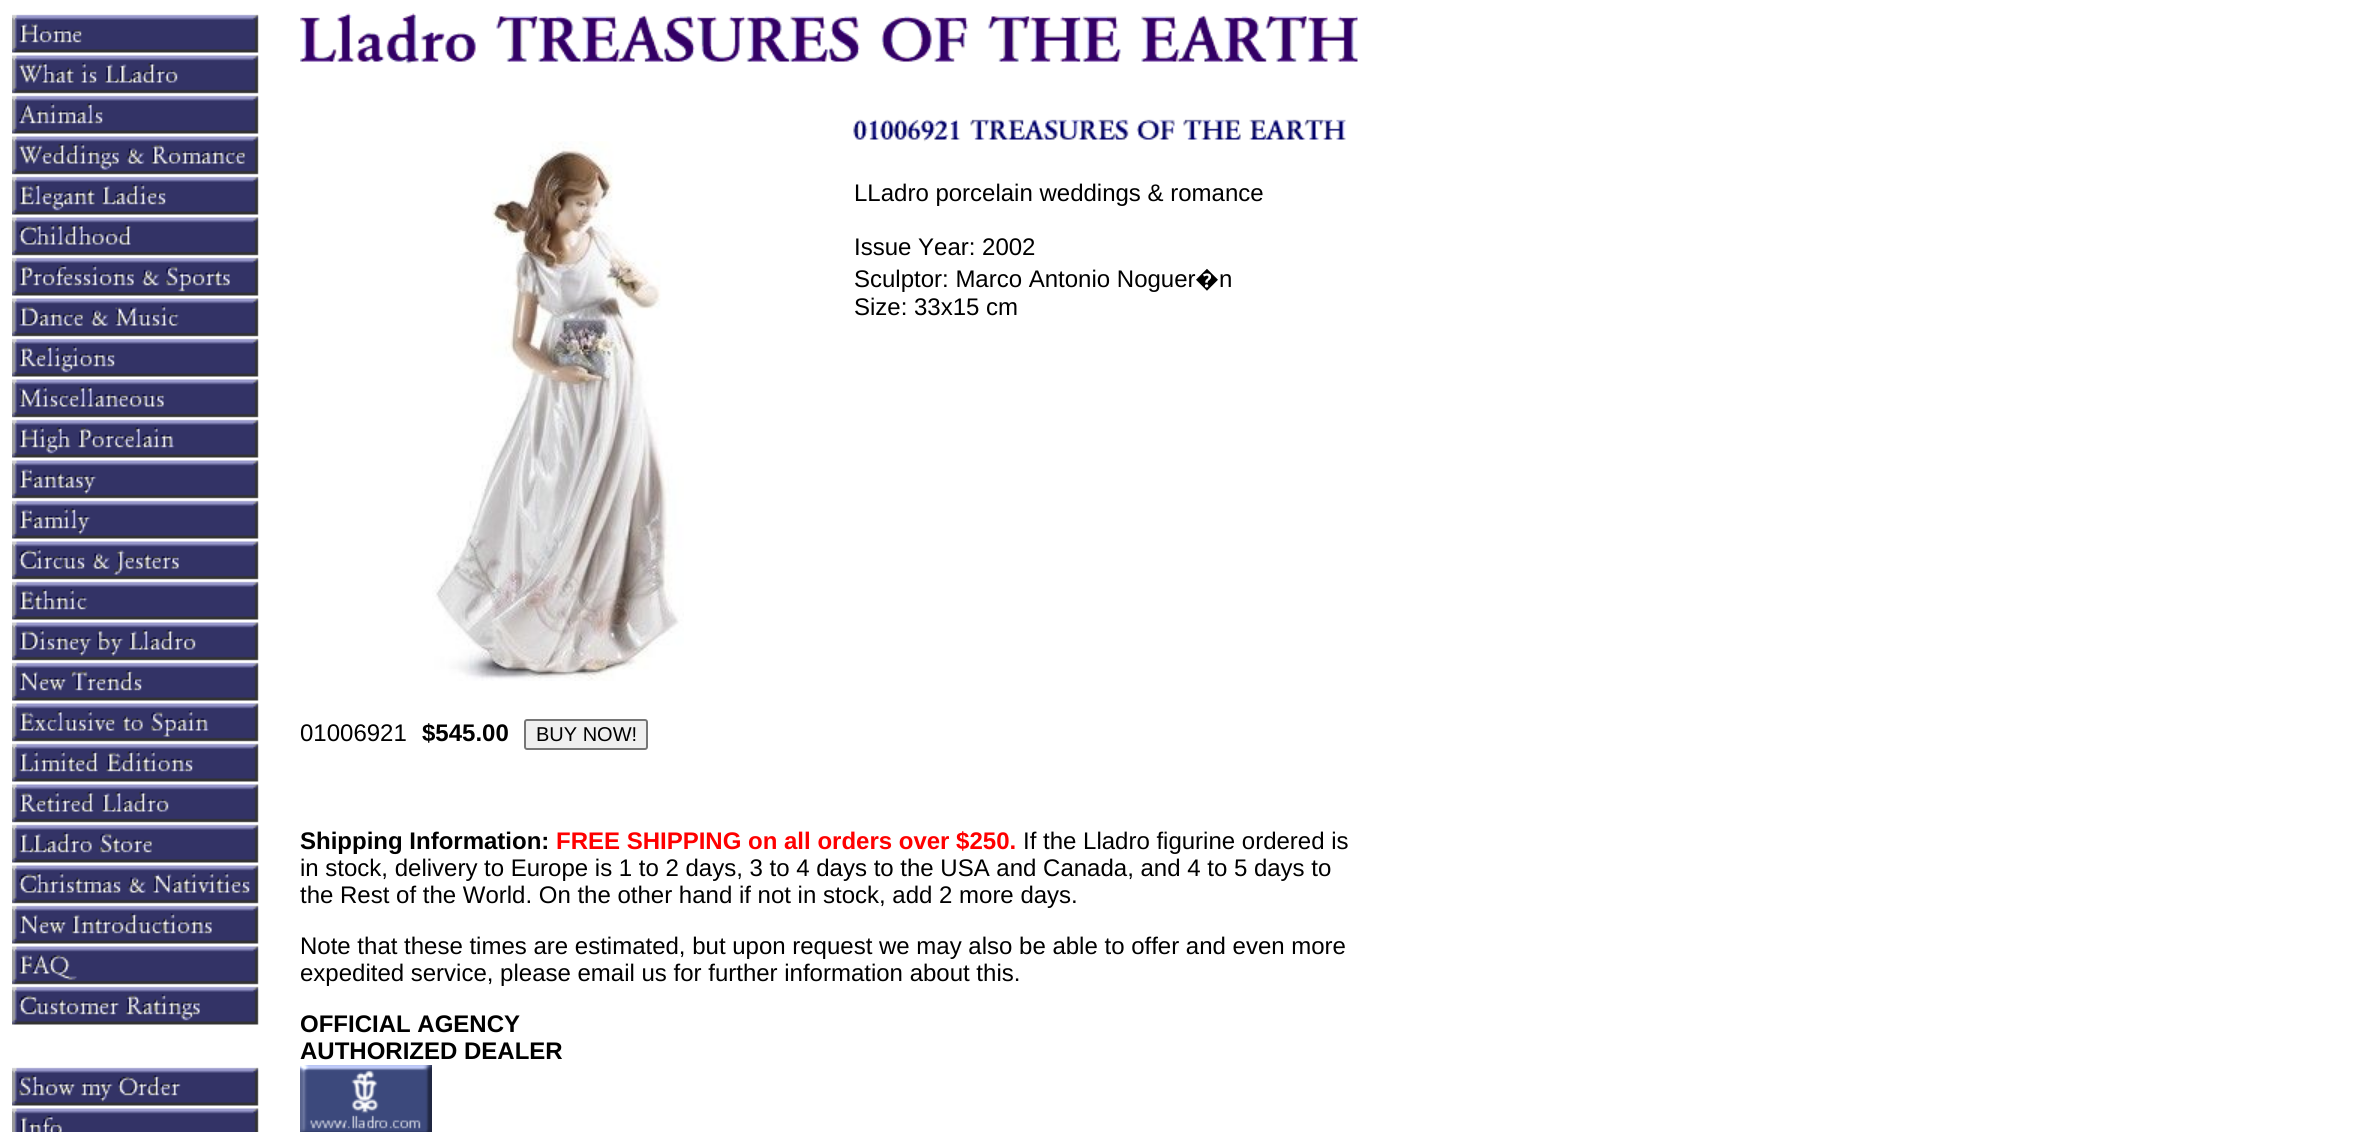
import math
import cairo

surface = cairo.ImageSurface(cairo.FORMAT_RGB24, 2359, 1132)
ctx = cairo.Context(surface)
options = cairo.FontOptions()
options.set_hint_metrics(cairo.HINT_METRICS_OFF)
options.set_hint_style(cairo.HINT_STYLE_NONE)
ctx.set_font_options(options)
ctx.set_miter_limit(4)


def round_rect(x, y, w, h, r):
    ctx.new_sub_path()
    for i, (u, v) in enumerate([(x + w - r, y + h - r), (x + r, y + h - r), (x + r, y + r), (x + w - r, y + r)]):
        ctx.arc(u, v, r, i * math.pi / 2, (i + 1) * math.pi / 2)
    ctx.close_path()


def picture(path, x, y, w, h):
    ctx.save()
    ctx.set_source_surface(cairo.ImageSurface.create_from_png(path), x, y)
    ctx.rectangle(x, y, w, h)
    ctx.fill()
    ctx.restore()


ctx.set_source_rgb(1, 1, 1)
ctx.paint()
picture("img1.png", 12, 14, 247, 1118)
picture("img2.png", 300, 13, 1058, 51)
picture("img3.png", 853, 119, 493, 23)
picture("img4.png", 432, 141, 252, 540)
ctx.select_font_face("Liberation Sans")
ctx.set_font_size(24)
ctx.set_source_rgb(0, 0, 0)
ctx.move_to(854, 201)
ctx.show_text("LLadro porcelain weddings & romance")
ctx.move_to(854, 255)
ctx.show_text("Issue Year: 2002")
ctx.move_to(854, 287)
ctx.show_text("Sculptor: Marco Antonio Noguer")
ctx.select_font_face("Noto Sans")
ctx.move_to(1195, 287)
ctx.show_text("�")
ctx.select_font_face("Liberation Sans")
ctx.move_to(1219, 287)
ctx.show_text("n")
ctx.move_to(854, 315)
ctx.show_text("Size: 33x15 cm")
ctx.move_to(300, 741)
ctx.show_text("01006921")
ctx.select_font_face("Liberation Sans", cairo.FONT_SLANT_NORMAL, cairo.FONT_WEIGHT_BOLD)
ctx.move_to(422, 741)
ctx.show_text("$545.00")
ctx.set_source_rgb(0.937, 0.937, 0.937)
round_rect(525, 720, 122, 29, 2)
ctx.fill_preserve()
ctx.set_source_rgb(0.463, 0.463, 0.463)
ctx.stroke()
ctx.select_font_face("Liberation Sans")
ctx.set_font_size(20)
ctx.set_source_rgb(0, 0, 0)
ctx.move_to(536, 741)
ctx.show_text("BUY NOW!")
ctx.select_font_face("Liberation Sans", cairo.FONT_SLANT_NORMAL, cairo.FONT_WEIGHT_BOLD)
ctx.set_font_size(24)
ctx.move_to(300, 849)
ctx.show_text("Shipping Information:")
ctx.set_source_rgb(1, 0, 0)
ctx.move_to(556, 849)
ctx.show_text("FREE SHIPPING on all orders over $250.")
ctx.select_font_face("Liberation Sans")
ctx.set_source_rgb(0, 0, 0)
ctx.move_to(1023, 849)
ctx.show_text("If the Lladro figurine ordered is")
ctx.move_to(300, 876)
ctx.show_text("in stock, delivery to Europe is 1 to 2 days, 3 to 4 days to the USA and Canada, and 4 to 5 days to")
ctx.move_to(300, 903)
ctx.show_text("the Rest of the World. On the other hand if not in stock, add 2 more days.")
ctx.move_to(300, 954)
ctx.show_text("Note that these times are estimated, but upon request we may also be able to offer and even more")
ctx.move_to(300, 981)
ctx.show_text("expedited service, please email us for further information about this.")
ctx.select_font_face("Liberation Sans", cairo.FONT_SLANT_NORMAL, cairo.FONT_WEIGHT_BOLD)
ctx.move_to(300, 1032)
ctx.show_text("OFFICIAL AGENCY")
ctx.move_to(300, 1059)
ctx.show_text("AUTHORIZED DEALER")
picture("img5.png", 300, 1065, 132, 67)
surface.write_to_png("page.png")
